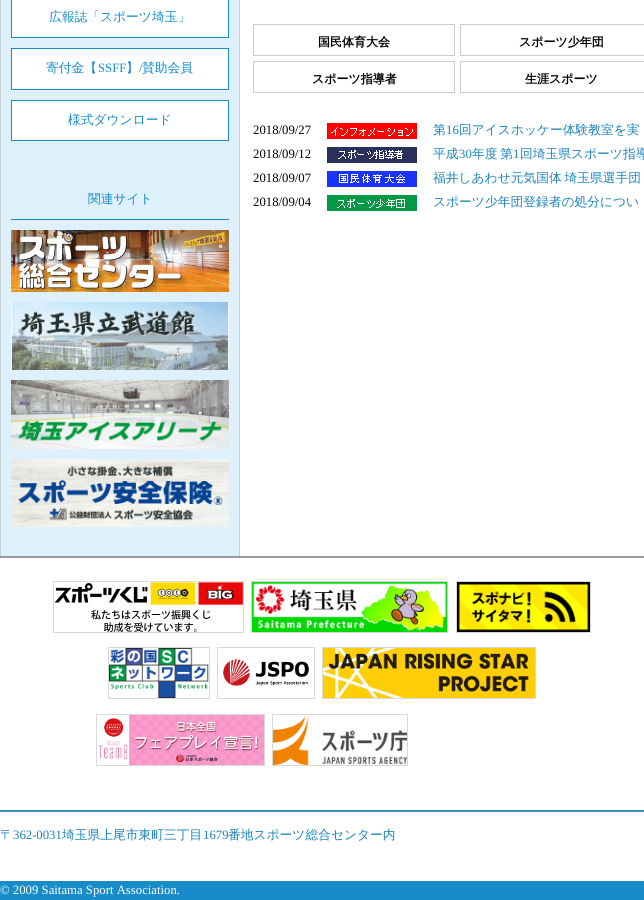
import math
import cairo

surface = cairo.ImageSurface(cairo.FORMAT_RGB24, 644, 900)
ctx = cairo.Context(surface)
options = cairo.FontOptions()
options.set_hint_metrics(cairo.HINT_METRICS_OFF)
options.set_hint_style(cairo.HINT_STYLE_NONE)
ctx.set_font_options(options)
ctx.set_miter_limit(4)


def spaced_text(x, y, s, letter, word):
    ctx.move_to(x, y)
    for ch in s:
        ctx.show_text(ch)
        ctx.rel_move_to(letter + word * (ch == ' '), 0)


def picture(path, x, y, w, h):
    ctx.save()
    ctx.set_source_surface(cairo.ImageSurface.create_from_png(path), x, y)
    ctx.rectangle(x, y, w, h)
    ctx.fill()
    ctx.restore()


ctx.set_source_rgb(1, 1, 1)
ctx.paint()
ctx.set_source_rgb(0.604, 0.604, 0.604)
ctx.rectangle(0, 556, 644, 2)
ctx.fill()
ctx.set_source_rgb(0.871, 0.941, 0.988)
ctx.rectangle(1, 0, 238, 556)
ctx.fill()
ctx.set_source_rgb(0.769, 0.812, 0.82)
ctx.rectangle(239, 0, 1, 556)
ctx.fill()
ctx.rectangle(0, 0, 1, 556)
ctx.fill()
ctx.set_source_rgb(1, 1, 1)
ctx.rectangle(11.5, -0.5, 217, 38)
ctx.fill_preserve()
ctx.set_source_rgb(0.09, 0.549, 0.788)
ctx.set_line_width(1)
ctx.stroke()
ctx.select_font_face("WenQuanYi Zen Hei Medium")
ctx.set_font_size(12.75)
ctx.move_to(49, 21)
ctx.show_text("広報誌「スポーツ埼玉」")
ctx.set_source_rgb(1, 1, 1)
ctx.rectangle(11.5, 48.5, 217, 41)
ctx.fill_preserve()
ctx.set_source_rgb(0.09, 0.549, 0.788)
ctx.stroke()
ctx.move_to(46, 72)
ctx.show_text("寄付金【")
ctx.select_font_face("Liberation Serif")
ctx.move_to(98, 72)
ctx.show_text("SSFF")
ctx.select_font_face("WenQuanYi Zen Hei Medium")
ctx.move_to(126, 72)
ctx.show_text("】")
ctx.select_font_face("Liberation Serif")
ctx.move_to(139, 72)
ctx.show_text("/")
ctx.select_font_face("WenQuanYi Zen Hei Medium")
ctx.move_to(142, 72)
ctx.show_text("賛助会員")
ctx.set_source_rgb(1, 1, 1)
ctx.rectangle(11.5, 100.5, 217, 40)
ctx.fill_preserve()
ctx.set_source_rgb(0.09, 0.549, 0.788)
ctx.stroke()
ctx.move_to(68, 124)
ctx.show_text("様式ダウンロード")
ctx.rectangle(11, 219, 218, 1)
ctx.fill()
ctx.move_to(88, 203)
ctx.show_text("関連サイト")
picture("img1.png", 11, 230, 218, 62)
picture("img2.png", 11, 302, 218, 68)
picture("img3.png", 11, 380, 218, 69)
picture("img4.png", 11, 459, 218, 68)
ctx.rectangle(253.5, 24.5, 201, 31)
ctx.set_source_rgb(0.8, 0.8, 0.8)
ctx.stroke()
ctx.select_font_face("WenQuanYi Zen Hei", cairo.FONT_SLANT_NORMAL, cairo.FONT_WEIGHT_BOLD)
ctx.set_font_size(12)
ctx.set_source_rgb(0, 0, 0)
ctx.move_to(318, 46)
ctx.show_text("国民体育大会")
ctx.rectangle(460.5, 24.5, 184, 31)
ctx.set_source_rgb(0.8, 0.8, 0.8)
ctx.stroke()
ctx.set_source_rgb(0, 0, 0)
ctx.move_to(519, 46)
ctx.show_text("スポーツ少年団")
ctx.rectangle(253.5, 61.5, 201, 31)
ctx.set_source_rgb(0.8, 0.8, 0.8)
ctx.stroke()
ctx.set_source_rgb(0, 0, 0)
ctx.move_to(312, 83)
ctx.show_text("スポーツ指導者")
ctx.rectangle(460.5, 61.5, 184, 31)
ctx.set_source_rgb(0.8, 0.8, 0.8)
ctx.stroke()
ctx.set_source_rgb(0, 0, 0)
ctx.move_to(525, 83)
ctx.show_text("生涯スポーツ")
ctx.select_font_face("Liberation Serif")
ctx.set_font_size(12.75)
ctx.move_to(253, 134)
ctx.show_text("2018/09/27")
picture("img5.png", 327, 123, 90, 16)
ctx.select_font_face("WenQuanYi Zen Hei Medium")
ctx.set_source_rgb(0.11, 0.514, 0.729)
ctx.move_to(433, 134)
ctx.show_text("第")
ctx.select_font_face("Liberation Serif")
ctx.move_to(446, 134)
ctx.show_text("16")
ctx.select_font_face("WenQuanYi Zen Hei Medium")
ctx.move_to(459, 134)
ctx.show_text("回アイスホッケー体験教室を実")
ctx.select_font_face("Liberation Serif")
ctx.set_source_rgb(0, 0, 0)
ctx.move_to(253, 158)
ctx.show_text("2018/09/12")
picture("img6.png", 327, 147, 90, 16)
ctx.select_font_face("WenQuanYi Zen Hei Medium")
ctx.set_source_rgb(0.11, 0.514, 0.729)
ctx.move_to(433, 158)
ctx.show_text("平成")
ctx.select_font_face("Liberation Serif")
ctx.move_to(459, 158)
ctx.show_text("30")
ctx.select_font_face("WenQuanYi Zen Hei Medium")
spaced_text(472, 158, "年度 第", 0, -1)
ctx.select_font_face("Liberation Serif")
ctx.move_to(513, 158)
ctx.show_text("1")
ctx.select_font_face("WenQuanYi Zen Hei Medium")
ctx.move_to(520, 158)
ctx.show_text("回埼玉県スポーツ指導")
ctx.select_font_face("Liberation Serif")
ctx.set_source_rgb(0, 0, 0)
ctx.move_to(253, 182)
ctx.show_text("2018/09/07")
picture("img7.png", 327, 171, 90, 16)
ctx.select_font_face("WenQuanYi Zen Hei Medium")
ctx.set_source_rgb(0.11, 0.514, 0.729)
spaced_text(433, 182, "福井しあわせ元気国体 埼玉県選手団", 0, -1)
ctx.select_font_face("Liberation Serif")
ctx.set_source_rgb(0, 0, 0)
ctx.move_to(253, 206)
ctx.show_text("2018/09/04")
picture("img8.png", 327, 195, 90, 16)
ctx.select_font_face("WenQuanYi Zen Hei Medium")
ctx.set_source_rgb(0.11, 0.514, 0.729)
ctx.move_to(433, 206)
ctx.show_text("スポーツ少年団登録者の処分につい")
ctx.rectangle(53.5, 581.5, 190, 51)
ctx.set_source_rgb(0.851, 0.851, 0.851)
ctx.stroke()
ctx.rectangle(251.5, 581.5, 196, 51)
ctx.stroke()
ctx.rectangle(456.5, 581.5, 134, 51)
ctx.stroke()
picture("img9.png", 54, 582, 189, 50)
picture("img10.png", 252, 582, 195, 50)
picture("img11.png", 457, 582, 133, 50)
ctx.rectangle(108.5, 647.5, 101, 51)
ctx.stroke()
ctx.rectangle(217.5, 647.5, 97, 51)
ctx.stroke()
ctx.rectangle(322.5, 647.5, 213, 51)
ctx.stroke()
picture("img12.png", 109, 648, 100, 50)
picture("img13.png", 223, 659, 86, 27)
picture("img14.png", 323, 648, 212, 50)
ctx.rectangle(96.5, 714.5, 168, 51)
ctx.stroke()
ctx.rectangle(272.5, 714.5, 135, 51)
ctx.stroke()
picture("img15.png", 98, 715, 166, 50)
picture("img16.png", 273, 715, 134, 50)
ctx.set_source_rgb(0.243, 0.573, 0.753)
ctx.rectangle(0, 810, 644, 2)
ctx.fill()
ctx.set_source_rgb(0.11, 0.514, 0.729)
ctx.move_to(0, 839)
ctx.show_text("〒")
ctx.select_font_face("Liberation Serif")
ctx.move_to(13, 839)
ctx.show_text("362-0031")
ctx.select_font_face("WenQuanYi Zen Hei Medium")
ctx.move_to(62, 839)
ctx.show_text("埼玉県上尾市東町三丁目")
ctx.select_font_face("Liberation Serif")
ctx.move_to(203, 839)
ctx.show_text("1679")
ctx.select_font_face("WenQuanYi Zen Hei Medium")
ctx.move_to(228, 839)
ctx.show_text("番地スポーツ総合センター内")
ctx.set_source_rgb(0.09, 0.549, 0.788)
ctx.rectangle(0, 881, 644, 19)
ctx.fill()
ctx.select_font_face("Liberation Serif")
ctx.set_source_rgb(1, 1, 1)
ctx.move_to(0, 894)
ctx.show_text("© 2009 Saitama Sport Association.")
surface.write_to_png("page.png")
